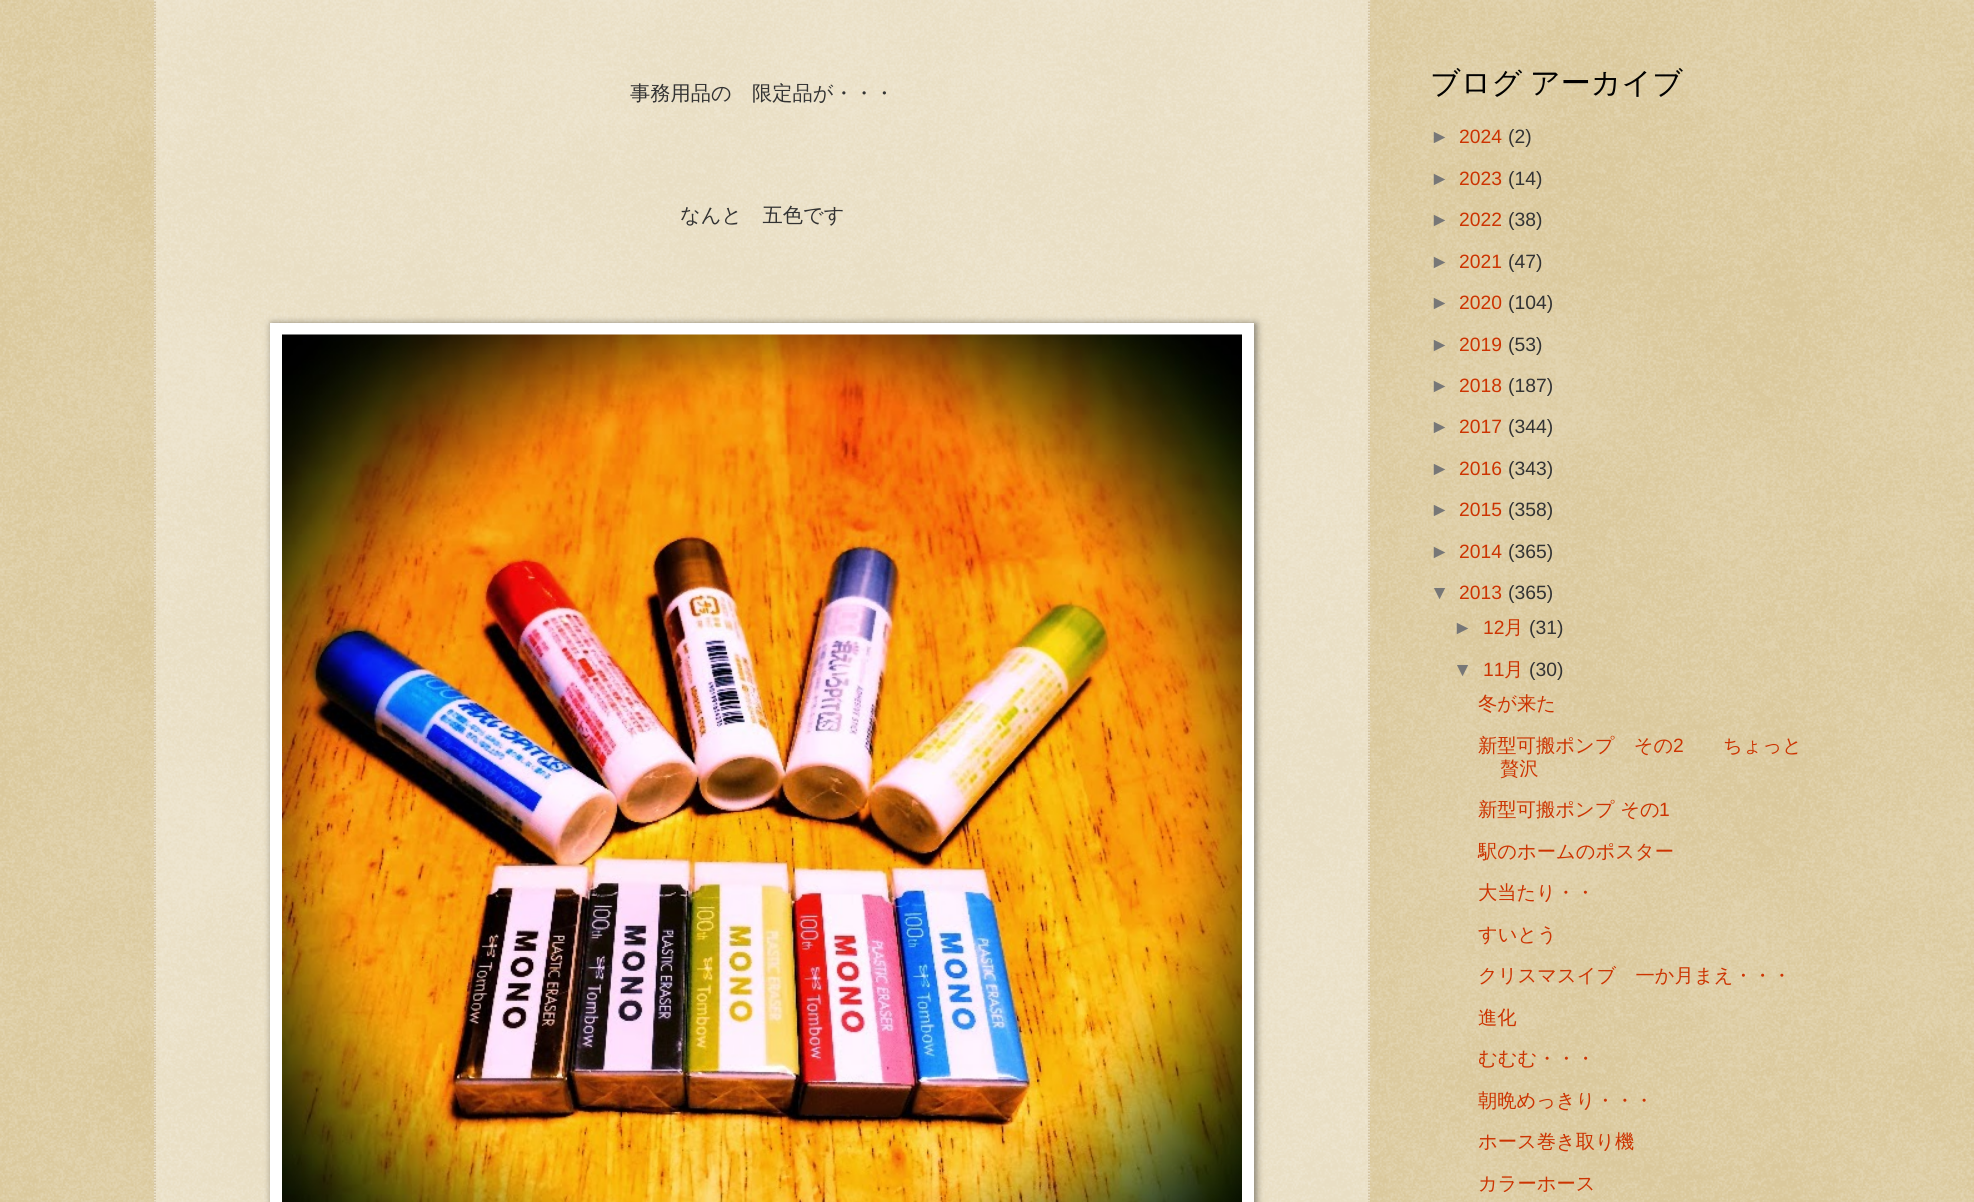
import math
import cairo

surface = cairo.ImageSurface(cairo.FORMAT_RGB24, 1974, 1202)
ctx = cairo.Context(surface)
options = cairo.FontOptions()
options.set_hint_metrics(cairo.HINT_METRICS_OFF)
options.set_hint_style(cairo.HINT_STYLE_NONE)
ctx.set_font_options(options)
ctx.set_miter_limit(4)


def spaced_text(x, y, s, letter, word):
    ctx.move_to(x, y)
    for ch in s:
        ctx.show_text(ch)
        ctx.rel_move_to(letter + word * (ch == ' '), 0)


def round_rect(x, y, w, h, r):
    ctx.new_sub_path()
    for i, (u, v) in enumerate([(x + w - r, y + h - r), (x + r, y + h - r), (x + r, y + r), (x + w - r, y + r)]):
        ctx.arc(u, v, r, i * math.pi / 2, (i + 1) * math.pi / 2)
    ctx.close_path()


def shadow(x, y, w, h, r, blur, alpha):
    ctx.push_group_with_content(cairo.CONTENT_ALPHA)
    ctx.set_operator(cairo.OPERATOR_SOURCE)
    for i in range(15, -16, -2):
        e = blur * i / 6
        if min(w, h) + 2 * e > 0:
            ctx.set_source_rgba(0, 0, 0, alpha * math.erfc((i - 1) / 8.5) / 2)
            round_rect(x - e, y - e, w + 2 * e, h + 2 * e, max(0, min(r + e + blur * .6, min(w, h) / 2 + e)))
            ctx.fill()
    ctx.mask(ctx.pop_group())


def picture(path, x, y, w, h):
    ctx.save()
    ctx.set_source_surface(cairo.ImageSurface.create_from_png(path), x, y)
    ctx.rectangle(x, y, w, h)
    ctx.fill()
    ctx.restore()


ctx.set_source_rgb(0.753, 0.631, 0.329)
ctx.paint()
picture("img1.png", 0, 0, 1974, 1202)
ctx.set_source_rgba(1, 1, 1, 0.4)
ctx.rectangle(154, 0, 1216, 1202)
ctx.fill()
ctx.new_path()
ctx.move_to(1369, -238.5)
ctx.line_to(1369, 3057)
ctx.set_source_rgb(0.8, 0.733, 0.6)
ctx.set_line_width(1.5)
ctx.set_dash([1.5, 1.5])
ctx.stroke()
ctx.new_path()
ctx.move_to(155, -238.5)
ctx.line_to(155, 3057)
ctx.stroke()
ctx.select_font_face("WenQuanYi Zen Hei Medium")
ctx.set_font_size(20.25)
ctx.set_source_rgb(0.2, 0.2, 0.2)
ctx.move_to(630, 100)
ctx.show_text("事務用品の　限定品が・・・")
ctx.move_to(680, 222)
ctx.show_text("なんと　五色です")
ctx.set_source_rgb(0, 0, 0)
shadow(272, 324, 984, 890, 0, 4, 0.5)
ctx.set_source_rgb(1, 1, 1)
ctx.rectangle(270, 323, 984, 879)
ctx.fill()
picture("img2.png", 282, 334, 960, 868)
ctx.set_font_size(30)
ctx.set_source_rgb(0, 0, 0)
spaced_text(1430, 93, "ブログ アーカイブ", 0, -1)
ctx.select_font_face("Liberation Sans")
ctx.set_font_size(19.3)
ctx.set_source_rgb(0.467, 0.467, 0.467)
ctx.move_to(1430, 143)
ctx.show_text("►")
ctx.set_source_rgb(0.8, 0.2, 0)
ctx.move_to(1459, 143)
ctx.show_text("2024")
ctx.set_source_rgb(0.2, 0.2, 0.2)
ctx.move_to(1508, 143)
ctx.show_text("(2)")
ctx.set_source_rgb(0.467, 0.467, 0.467)
ctx.move_to(1430, 185)
ctx.show_text("►")
ctx.set_source_rgb(0.8, 0.2, 0)
ctx.move_to(1459, 185)
ctx.show_text("2023")
ctx.set_source_rgb(0.2, 0.2, 0.2)
ctx.move_to(1508, 185)
ctx.show_text("(14)")
ctx.set_source_rgb(0.467, 0.467, 0.467)
ctx.move_to(1430, 226)
ctx.show_text("►")
ctx.set_source_rgb(0.8, 0.2, 0)
ctx.move_to(1459, 226)
ctx.show_text("2022")
ctx.set_source_rgb(0.2, 0.2, 0.2)
ctx.move_to(1508, 226)
ctx.show_text("(38)")
ctx.set_source_rgb(0.467, 0.467, 0.467)
ctx.move_to(1430, 268)
ctx.show_text("►")
ctx.set_source_rgb(0.8, 0.2, 0)
ctx.move_to(1459, 268)
ctx.show_text("2021")
ctx.set_source_rgb(0.2, 0.2, 0.2)
ctx.move_to(1508, 268)
ctx.show_text("(47)")
ctx.set_source_rgb(0.467, 0.467, 0.467)
ctx.move_to(1430, 309)
ctx.show_text("►")
ctx.set_source_rgb(0.8, 0.2, 0)
ctx.move_to(1459, 309)
ctx.show_text("2020")
ctx.set_source_rgb(0.2, 0.2, 0.2)
ctx.move_to(1508, 309)
ctx.show_text("(104)")
ctx.set_source_rgb(0.467, 0.467, 0.467)
ctx.move_to(1430, 351)
ctx.show_text("►")
ctx.set_source_rgb(0.8, 0.2, 0)
ctx.move_to(1459, 351)
ctx.show_text("2019")
ctx.set_source_rgb(0.2, 0.2, 0.2)
ctx.move_to(1508, 351)
ctx.show_text("(53)")
ctx.set_source_rgb(0.467, 0.467, 0.467)
ctx.move_to(1430, 392)
ctx.show_text("►")
ctx.set_source_rgb(0.8, 0.2, 0)
ctx.move_to(1459, 392)
ctx.show_text("2018")
ctx.set_source_rgb(0.2, 0.2, 0.2)
ctx.move_to(1508, 392)
ctx.show_text("(187)")
ctx.set_source_rgb(0.467, 0.467, 0.467)
ctx.move_to(1430, 433)
ctx.show_text("►")
ctx.set_source_rgb(0.8, 0.2, 0)
ctx.move_to(1459, 433)
ctx.show_text("2017")
ctx.set_source_rgb(0.2, 0.2, 0.2)
ctx.move_to(1508, 433)
ctx.show_text("(344)")
ctx.set_source_rgb(0.467, 0.467, 0.467)
ctx.move_to(1430, 475)
ctx.show_text("►")
ctx.set_source_rgb(0.8, 0.2, 0)
ctx.move_to(1459, 475)
ctx.show_text("2016")
ctx.set_source_rgb(0.2, 0.2, 0.2)
ctx.move_to(1508, 475)
ctx.show_text("(343)")
ctx.set_source_rgb(0.467, 0.467, 0.467)
ctx.move_to(1430, 516)
ctx.show_text("►")
ctx.set_source_rgb(0.8, 0.2, 0)
ctx.move_to(1459, 516)
ctx.show_text("2015")
ctx.set_source_rgb(0.2, 0.2, 0.2)
ctx.move_to(1508, 516)
ctx.show_text("(358)")
ctx.set_source_rgb(0.467, 0.467, 0.467)
ctx.move_to(1430, 558)
ctx.show_text("►")
ctx.set_source_rgb(0.8, 0.2, 0)
ctx.move_to(1459, 558)
ctx.show_text("2014")
ctx.set_source_rgb(0.2, 0.2, 0.2)
ctx.move_to(1508, 558)
ctx.show_text("(365)")
ctx.set_source_rgb(0.467, 0.467, 0.467)
ctx.move_to(1430, 599)
ctx.show_text("▼")
ctx.set_source_rgb(0.8, 0.2, 0)
ctx.move_to(1459, 599)
ctx.show_text("2013")
ctx.set_source_rgb(0.2, 0.2, 0.2)
ctx.move_to(1508, 599)
ctx.show_text("(365)")
ctx.set_source_rgb(0.467, 0.467, 0.467)
ctx.move_to(1453, 634)
ctx.show_text("►")
ctx.set_source_rgb(0.8, 0.2, 0)
ctx.move_to(1483, 634)
ctx.show_text("12")
ctx.select_font_face("WenQuanYi Zen Hei Medium")
ctx.move_to(1504, 634)
ctx.show_text("月")
ctx.select_font_face("Liberation Sans")
ctx.set_source_rgb(0.2, 0.2, 0.2)
ctx.move_to(1529, 634)
ctx.show_text("(31)")
ctx.set_source_rgb(0.467, 0.467, 0.467)
ctx.move_to(1453, 676)
ctx.show_text("▼")
ctx.set_source_rgb(0.8, 0.2, 0)
ctx.move_to(1483, 676)
ctx.show_text("11")
ctx.select_font_face("WenQuanYi Zen Hei Medium")
ctx.move_to(1504, 676)
ctx.show_text("月")
ctx.select_font_face("Liberation Sans")
ctx.set_source_rgb(0.2, 0.2, 0.2)
ctx.move_to(1529, 676)
ctx.show_text("(30)")
ctx.select_font_face("WenQuanYi Zen Hei Medium")
ctx.set_source_rgb(0.8, 0.2, 0)
ctx.move_to(1478, 710)
ctx.show_text("冬が来た")
ctx.move_to(1478, 752)
ctx.show_text("新型可搬ポンプ　その")
ctx.select_font_face("Liberation Sans")
ctx.move_to(1673, 752)
ctx.show_text("2")
ctx.select_font_face("WenQuanYi Zen Hei Medium")
ctx.move_to(1723, 752)
ctx.show_text("ちょっと")
ctx.move_to(1500, 775)
ctx.show_text("贅沢")
ctx.move_to(1478, 816)
ctx.show_text("新型可搬ポンプ その")
ctx.select_font_face("Liberation Sans")
ctx.move_to(1659, 816)
ctx.show_text("1")
ctx.select_font_face("WenQuanYi Zen Hei Medium")
ctx.move_to(1478, 858)
ctx.show_text("駅のホームのポスター")
ctx.move_to(1478, 899)
ctx.show_text("大当たり・・")
ctx.move_to(1478, 941)
ctx.show_text("すいとう")
ctx.move_to(1478, 982)
ctx.show_text("クリスマスイブ　一か月まえ・・・")
ctx.move_to(1478, 1024)
ctx.show_text("進化")
ctx.move_to(1478, 1065)
ctx.show_text("むむむ・・・")
ctx.move_to(1478, 1107)
ctx.show_text("朝晩めっきり・・・")
ctx.move_to(1478, 1148)
ctx.show_text("ホース巻き取り機")
ctx.move_to(1478, 1190)
ctx.show_text("カラーホース")
surface.write_to_png("page.png")
